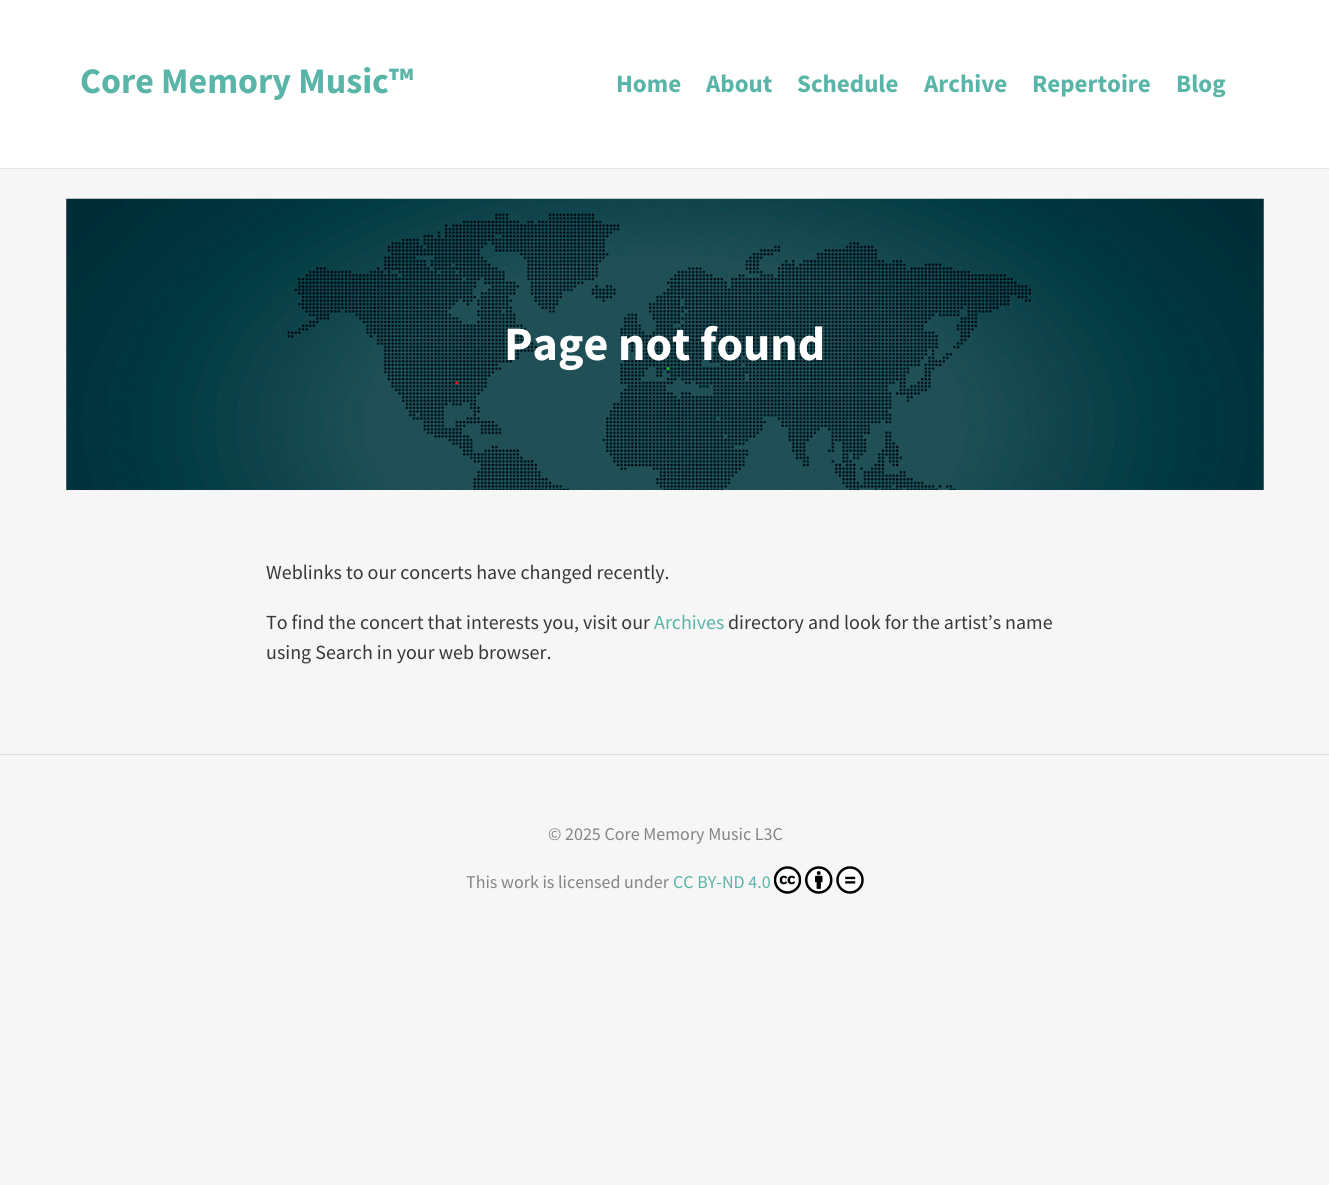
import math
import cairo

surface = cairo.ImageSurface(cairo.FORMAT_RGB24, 1329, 1185)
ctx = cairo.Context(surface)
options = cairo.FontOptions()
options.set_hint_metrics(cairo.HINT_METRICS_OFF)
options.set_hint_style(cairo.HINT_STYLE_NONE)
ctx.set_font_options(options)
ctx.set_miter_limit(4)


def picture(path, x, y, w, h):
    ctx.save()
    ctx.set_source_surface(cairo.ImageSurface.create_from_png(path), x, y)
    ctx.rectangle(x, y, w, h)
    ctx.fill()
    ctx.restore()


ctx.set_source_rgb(0.961, 0.961, 0.961)
ctx.paint()
ctx.set_source_rgb(1, 1, 1)
ctx.rectangle(0, 0, 1329, 168)
ctx.fill()
ctx.set_source_rgb(0.902, 0.902, 0.902)
ctx.rectangle(0, 168, 1329, 1)
ctx.fill()
ctx.select_font_face("Source Sans Pro", cairo.FONT_SLANT_NORMAL, cairo.FONT_WEIGHT_BOLD)
ctx.set_font_size(36)
ctx.set_source_rgb(0.349, 0.71, 0.659)
ctx.move_to(80, 93)
ctx.show_text("Core Memory Music™")
ctx.set_font_size(25)
ctx.move_to(616, 92)
ctx.show_text("Home")
ctx.move_to(706, 92)
ctx.show_text("About")
ctx.move_to(797, 92)
ctx.show_text("Schedule")
ctx.move_to(924, 92)
ctx.show_text("Archive")
ctx.move_to(1032, 92)
ctx.show_text("Repertoire")
ctx.move_to(1176, 92)
ctx.show_text("Blog")
ctx.set_source_rgb(0.867, 0.867, 0.867)
ctx.rectangle(0, 754, 1329, 1)
ctx.fill()
picture("img1.png", 66, 198, 1198, 292)
ctx.set_font_size(48)
ctx.set_source_rgb(1, 1, 1)
ctx.move_to(504, 360)
ctx.show_text("Page not found")
ctx.select_font_face("Source Sans Pro")
ctx.set_font_size(20)
ctx.set_source_rgb(0.22, 0.22, 0.22)
ctx.move_to(266, 579)
ctx.show_text("Weblinks to our concerts have changed recently.")
ctx.move_to(266, 629)
ctx.show_text("To find the concert that interests you, visit our")
ctx.set_source_rgb(0.349, 0.71, 0.659)
ctx.move_to(654, 629)
ctx.show_text("Archives")
ctx.set_source_rgb(0.22, 0.22, 0.22)
ctx.move_to(728, 629)
ctx.show_text("directory and look for the artist’s name")
ctx.move_to(266, 659)
ctx.show_text("using Search in your web browser.")
ctx.set_font_size(18)
ctx.set_source_rgb(0.522, 0.522, 0.522)
ctx.move_to(548, 840)
ctx.show_text("© 2025 Core Memory Music L3C")
ctx.move_to(466, 888)
ctx.show_text("This work is licensed under")
ctx.set_source_rgb(0.349, 0.71, 0.659)
ctx.move_to(673, 888)
ctx.show_text("CC BY-ND 4.0")
picture("img2.png", 774, 866, 27, 28)
picture("img3.png", 805, 866, 28, 28)
picture("img4.png", 836, 866, 28, 28)
surface.write_to_png("page.png")
